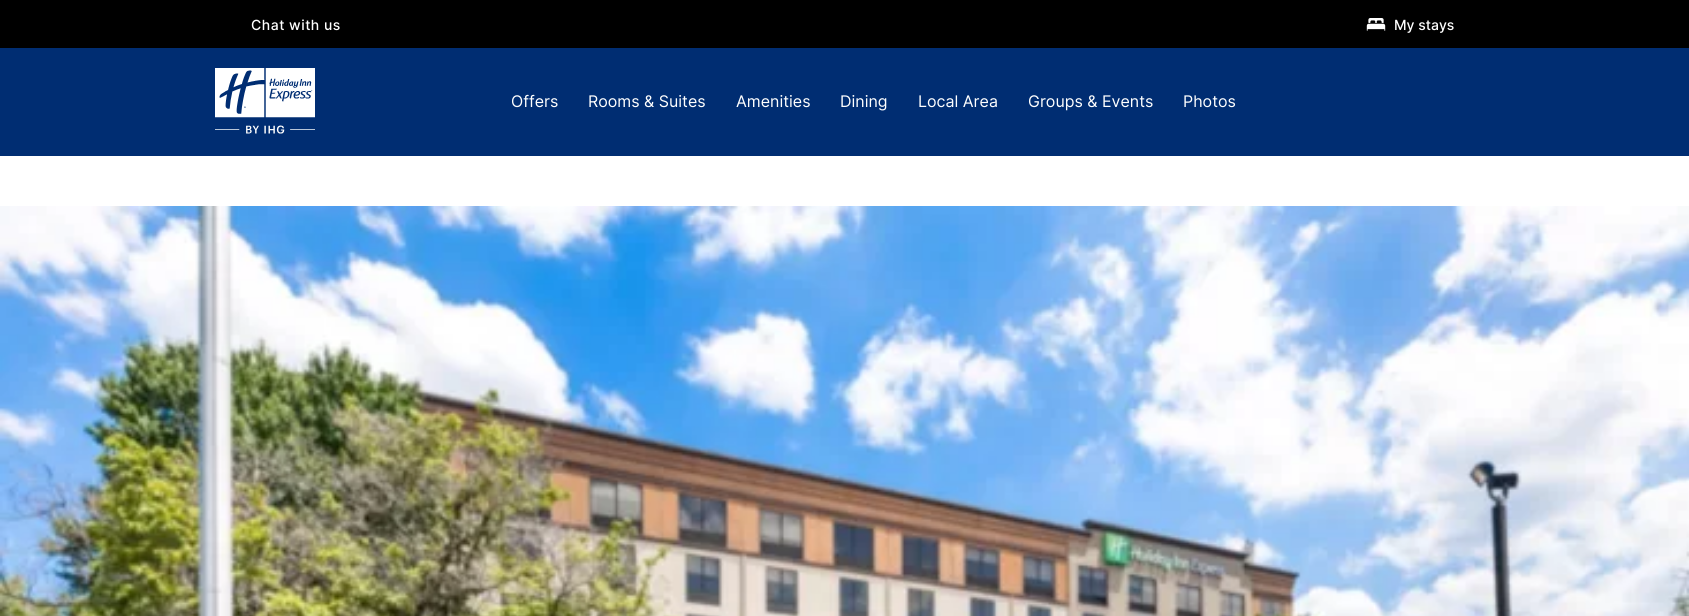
import math
import cairo

surface = cairo.ImageSurface(cairo.FORMAT_RGB24, 1689, 616)
ctx = cairo.Context(surface)
options = cairo.FontOptions()
options.set_hint_metrics(cairo.HINT_METRICS_OFF)
options.set_hint_style(cairo.HINT_STYLE_NONE)
ctx.set_font_options(options)
ctx.set_miter_limit(4)


def spaced_text(x, y, s, letter, word):
    ctx.move_to(x, y)
    for ch in s:
        ctx.show_text(ch)
        ctx.rel_move_to(letter + word * (ch == ' '), 0)


def picture(path, x, y, w, h):
    ctx.save()
    ctx.set_source_surface(cairo.ImageSurface.create_from_png(path), x, y)
    ctx.rectangle(x, y, w, h)
    ctx.fill()
    ctx.restore()


ctx.set_source_rgb(1, 1, 1)
ctx.paint()
ctx.set_source_rgb(0, 0, 0)
ctx.rectangle(0, 0, 1689, 48)
ctx.fill()
ctx.select_font_face("Inter Medium")
ctx.set_font_size(14)
ctx.set_source_rgb(1, 1, 1)
spaced_text(251, 30, "Chat with us", 0.5, 0)
picture("img1.png", 1366, 18, 20, 13)
ctx.move_to(1394, 30)
ctx.show_text("My stays")
ctx.set_source_rgb(0, 0.176, 0.447)
ctx.rectangle(0, 48, 1689, 108)
ctx.fill()
picture("img2.png", 215, 68, 100, 66)
ctx.select_font_face("Inter")
ctx.set_font_size(16)
ctx.set_source_rgb(1, 1, 1)
ctx.move_to(511, 107)
ctx.show_text("Offers")
ctx.move_to(588, 107)
ctx.show_text("Rooms & Suites")
ctx.move_to(736, 107)
ctx.show_text("Amenities")
ctx.move_to(840, 107)
ctx.show_text("Dining")
ctx.move_to(918, 107)
ctx.show_text("Local Area")
ctx.move_to(1028, 107)
ctx.show_text("Groups & Events")
ctx.move_to(1183, 107)
ctx.show_text("Photos")
picture("img3.png", 0, 206, 1689, 410)
surface.write_to_png("page.png")
